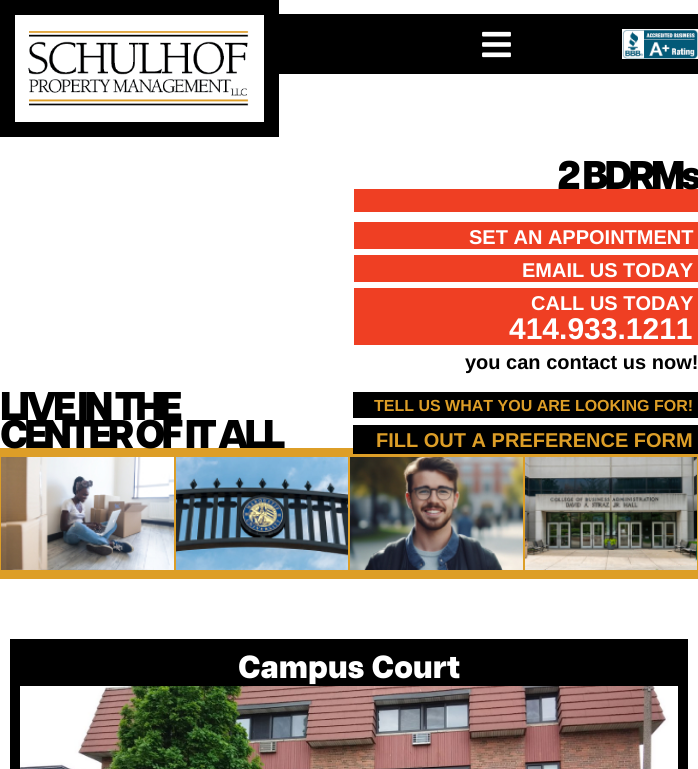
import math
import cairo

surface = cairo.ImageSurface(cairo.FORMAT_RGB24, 698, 769)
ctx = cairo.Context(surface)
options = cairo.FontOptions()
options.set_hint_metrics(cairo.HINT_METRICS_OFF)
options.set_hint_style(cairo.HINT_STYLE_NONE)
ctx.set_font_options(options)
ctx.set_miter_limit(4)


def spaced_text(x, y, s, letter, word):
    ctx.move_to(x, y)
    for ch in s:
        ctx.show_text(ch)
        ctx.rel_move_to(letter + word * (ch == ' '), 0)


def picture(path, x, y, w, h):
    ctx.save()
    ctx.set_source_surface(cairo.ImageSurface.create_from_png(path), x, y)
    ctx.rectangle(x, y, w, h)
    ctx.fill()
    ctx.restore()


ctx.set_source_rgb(1, 1, 1)
ctx.paint()
ctx.rectangle(7.5, 7.5, 264, 122)
ctx.set_source_rgb(0, 0, 0)
ctx.set_line_width(15)
ctx.stroke()
picture("img1.png", 28, 31, 221, 75)
ctx.rectangle(279, 14, 419, 60)
ctx.fill()
picture("img2.png", 482, 31, 29, 27)
picture("img3.png", 622, 29, 76, 30)
ctx.select_font_face("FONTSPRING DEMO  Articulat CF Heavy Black")
ctx.set_font_size(40)
spaced_text(0, 420, "LIVE IN THE", -4, 0)
ctx.set_source_rgb(0.867, 0.62, 0.153)
ctx.rectangle(0, 448, 698, 8)
ctx.fill()
ctx.set_source_rgb(0, 0, 0)
spaced_text(0, 448, "CENTER OF IT ALL", -4, 0)
ctx.set_source_rgb(0.937, 0.247, 0.137)
ctx.rectangle(354, 189, 344, 23)
ctx.fill()
ctx.set_source_rgb(0, 0, 0)
spaced_text(557, 189, "2 BDRMs", -4, 0)
ctx.set_source_rgb(0.937, 0.247, 0.137)
ctx.rectangle(354, 222, 344, 27)
ctx.fill()
ctx.select_font_face("Liberation Sans", cairo.FONT_SLANT_NORMAL, cairo.FONT_WEIGHT_BOLD)
ctx.set_font_size(20)
ctx.set_source_rgb(1, 1, 1)
ctx.move_to(469, 244)
ctx.show_text("SET AN APPOINTMENT")
ctx.set_source_rgb(0.937, 0.247, 0.137)
ctx.rectangle(354, 255, 344, 27)
ctx.fill()
ctx.set_source_rgb(1, 1, 1)
ctx.move_to(522, 277)
ctx.show_text("EMAIL US TODAY")
ctx.set_source_rgb(0.937, 0.247, 0.137)
ctx.rectangle(354, 288, 344, 57)
ctx.fill()
ctx.set_source_rgb(1, 1, 1)
ctx.move_to(531, 310)
ctx.show_text("CALL US TODAY")
ctx.set_font_size(30)
ctx.move_to(509, 339)
ctx.show_text("414.933.1211")
ctx.set_font_size(20)
ctx.set_source_rgb(0, 0, 0)
ctx.move_to(465, 369)
ctx.show_text("you can contact us now!")
ctx.rectangle(353, 392, 345, 26)
ctx.fill()
ctx.set_font_size(16)
ctx.set_source_rgb(0.867, 0.62, 0.153)
ctx.move_to(374, 411)
ctx.show_text("TELL US WHAT YOU ARE LOOKING FOR!")
ctx.set_source_rgb(0, 0, 0)
ctx.rectangle(353, 425, 345, 29)
ctx.fill()
ctx.set_font_size(20)
ctx.set_source_rgb(0.867, 0.62, 0.153)
ctx.move_to(376, 447)
ctx.show_text("FILL OUT A PREFERENCE FORM")
ctx.rectangle(0, 571, 698, 8)
ctx.fill()
ctx.rectangle(0.5, 456.5, 174, 114)
ctx.set_line_width(1)
ctx.stroke()
picture("img4.png", 1, 457, 173, 113)
ctx.rectangle(175.5, 456.5, 173, 114)
ctx.stroke()
picture("img5.png", 176, 457, 172, 113)
ctx.rectangle(349.5, 456.5, 174, 114)
ctx.stroke()
picture("img6.png", 350, 457, 173, 113)
ctx.rectangle(524.5, 456.5, 173, 114)
ctx.stroke()
picture("img7.png", 525, 457, 172, 113)
ctx.set_source_rgb(0, 0, 0)
ctx.rectangle(10, 639, 678, 130)
ctx.fill()
ctx.select_font_face("FONTSPRING DEMO  Articulat CF Heavy Black")
ctx.set_font_size(32)
ctx.set_source_rgb(1, 1, 1)
ctx.move_to(238, 678)
ctx.show_text("Campus Court")
picture("img8.png", 20, 686, 658, 83)
surface.write_to_png("page.png")
